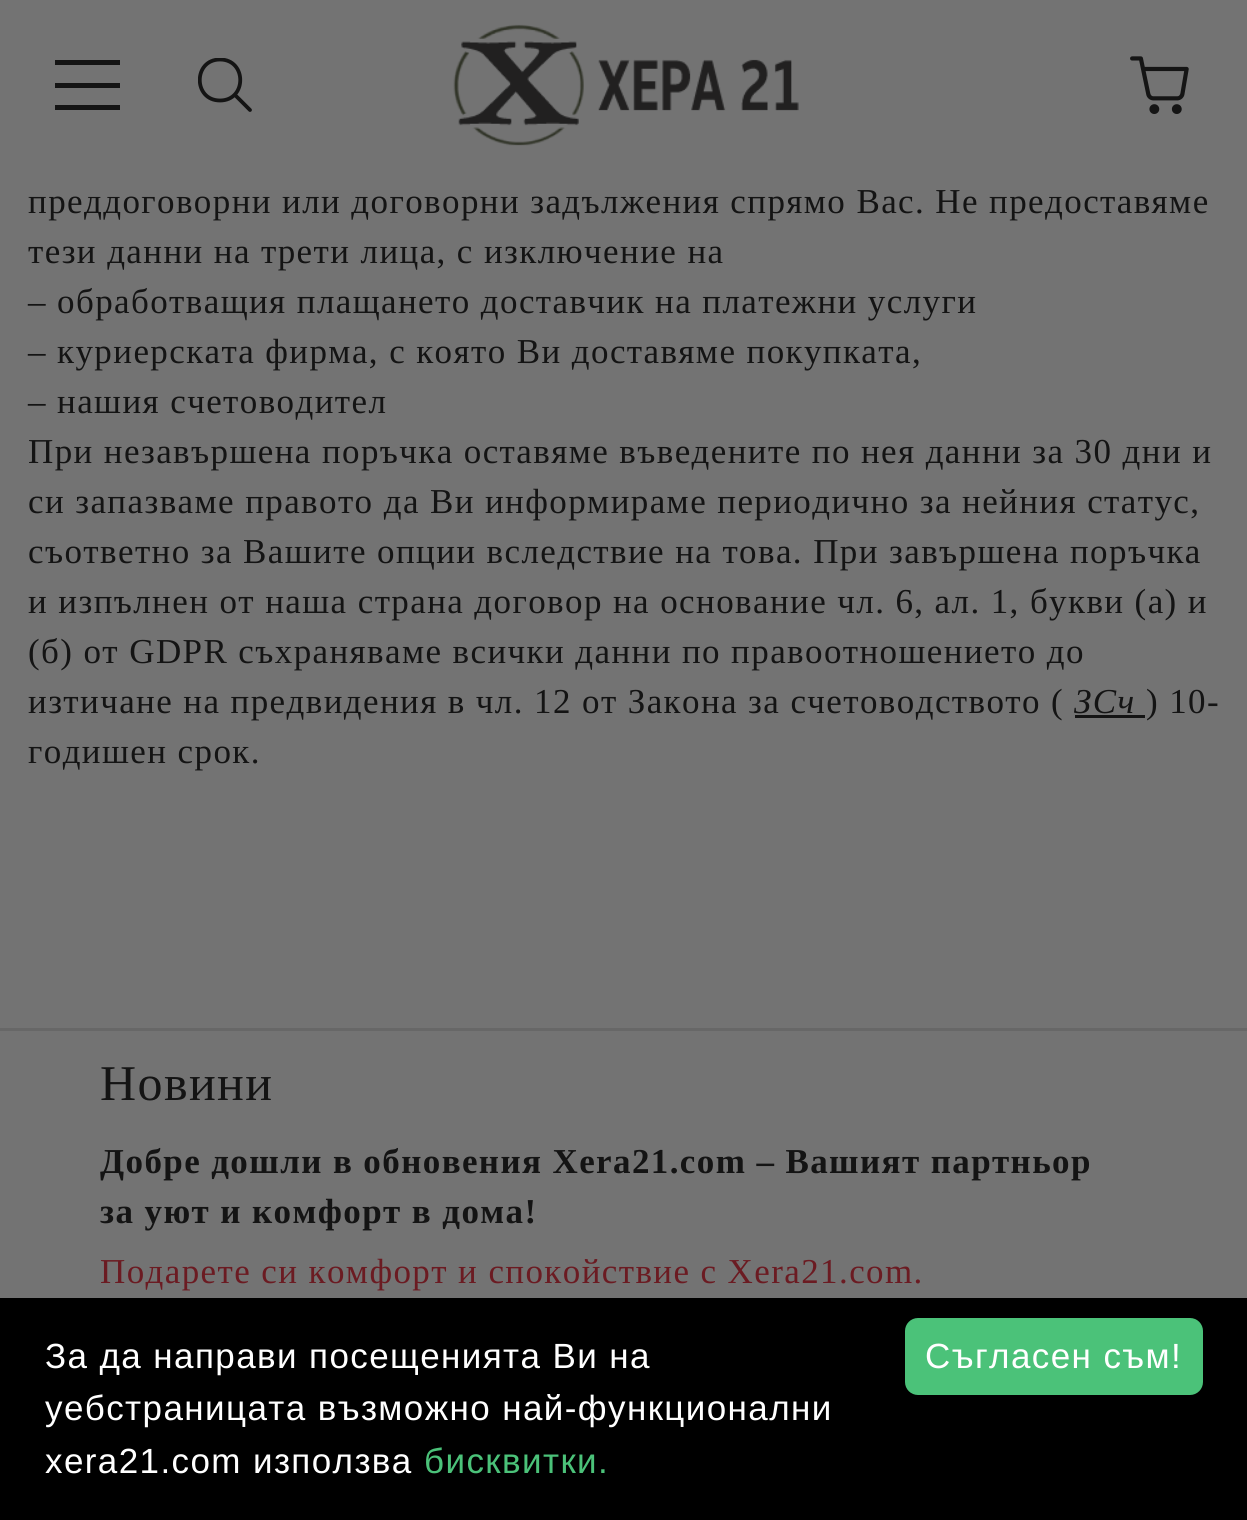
import math
import cairo

surface = cairo.ImageSurface(cairo.FORMAT_RGB24, 1247, 1520)
ctx = cairo.Context(surface)
options = cairo.FontOptions()
options.set_hint_metrics(cairo.HINT_METRICS_OFF)
options.set_hint_style(cairo.HINT_STYLE_NONE)
ctx.set_font_options(options)
ctx.set_miter_limit(4)


def spaced_text(x, y, s, letter, word):
    ctx.move_to(x, y)
    for ch in s:
        ctx.show_text(ch)
        ctx.rel_move_to(letter + word * (ch == ' '), 0)


def round_rect(x, y, w, h, r):
    ctx.new_sub_path()
    for i, (u, v) in enumerate([(x + w - r, y + h - r), (x + r, y + h - r), (x + r, y + r), (x + w - r, y + r)]):
        ctx.arc(u, v, r, i * math.pi / 2, (i + 1) * math.pi / 2)
    ctx.close_path()


def picture(path, x, y, w, h):
    ctx.save()
    ctx.set_source_surface(cairo.ImageSurface.create_from_png(path), x, y)
    ctx.rectangle(x, y, w, h)
    ctx.fill()
    ctx.restore()


ctx.set_source_rgb(0.451, 0.451, 0.451)
ctx.paint()
ctx.set_source_rgb(0.082, 0.082, 0.082)
ctx.rectangle(55, 60, 65, 5)
ctx.fill()
ctx.rectangle(55, 83, 65, 5)
ctx.fill()
ctx.rectangle(55, 105, 65, 5)
ctx.fill()
ctx.save()
ctx.rectangle(198, 58, 55, 55)
ctx.clip()
ctx.new_path()
ctx.move_to(220, 59.5)
ctx.curve_to(193, 59.5, 193, 100.5, 220, 100.5)
ctx.curve_to(247, 100.5, 247, 59.5, 220, 59.5)
ctx.close_path()
ctx.set_line_width(3.8)
ctx.stroke()
ctx.restore()
ctx.new_path()
ctx.move_to(235.5, 95.5)
ctx.line_to(250, 110)
ctx.set_line_width(3.8)
ctx.set_line_cap(cairo.LINE_CAP_ROUND)
ctx.stroke()
picture("img1.png", 453, 24, 346, 122)
picture("img2.png", 1130, 56, 59, 58)
ctx.select_font_face("Liberation Serif")
ctx.set_font_size(35)
spaced_text(28, 213, "преддоговорни или договорни задължения спрямо Вас. Не предоставяме", 1.4, 0)
spaced_text(28, 263, "тези данни на трети лица, с изключение на", 1.4, 0)
spaced_text(28, 313, "– обработващия плащането доставчик на платежни услуги", 1.4, 0)
spaced_text(28, 363, "– куриерската фирма, с която Ви доставяме покупката,", 1.4, 0)
spaced_text(28, 413, "– нашия счетоводител", 1.4, 0)
spaced_text(28, 463, "При незавършена поръчка оставяме въведените по нея данни за 30 дни и", 1.4, 0)
spaced_text(28, 513, "си запазваме правото да Ви информираме периодично за нейния статус,", 1.4, 0)
spaced_text(28, 563, "съответно за Вашите опции вследствие на това. При завършена поръчка", 1.4, 0)
spaced_text(28, 613, "и изпълнен от наша страна договор на основание чл. 6, ал. 1, букви (а) и", 1.4, 0)
spaced_text(28, 663, "(б) от GDPR съхраняваме всички данни по правоотношението до", 1.4, 0)
spaced_text(28, 713, "изтичане на предвидения в чл. 12 от Закона за счетоводството (", 1.4, 0)
ctx.select_font_face("Liberation Serif", cairo.FONT_SLANT_ITALIC)
spaced_text(1074, 713, "ЗСч", 1.4, 0)
ctx.rectangle(1075, 715, 70, 3)
ctx.fill()
ctx.select_font_face("Liberation Serif")
spaced_text(1146, 713, ") 10-", 1.4, 0)
spaced_text(28, 763, "годишен срок.", 1.4, 0)
ctx.set_source_rgb(0.404, 0.404, 0.404)
ctx.rectangle(0, 1028, 1247, 3)
ctx.fill()
ctx.set_font_size(50)
ctx.set_source_rgb(0.082, 0.082, 0.082)
spaced_text(100, 1100, "Новини", 1.4, 0)
ctx.select_font_face("Liberation Serif", cairo.FONT_SLANT_NORMAL, cairo.FONT_WEIGHT_BOLD)
ctx.set_font_size(35)
spaced_text(100, 1173, "Добре дошли в обновения Xera21.com – Вашият партньор", 1.4, 0)
spaced_text(100, 1223, "за уют и комфорт в дома!", 1.4, 0)
ctx.select_font_face("Liberation Serif")
ctx.set_source_rgb(0.42, 0.106, 0.133)
spaced_text(100, 1283, "Подарете си комфорт и спокойствие с Xera21.com.", 1.4, 0)
ctx.set_source_rgb(0, 0, 0)
ctx.rectangle(0, 1298, 1247, 222)
ctx.fill()
ctx.select_font_face("Liberation Sans")
ctx.set_source_rgb(1, 1, 1)
spaced_text(45, 1368, "За да направи посещенията Ви на", 1.4, 0)
spaced_text(45, 1420, "уебстраницата възможно най-функционални", 1.4, 0)
spaced_text(45, 1473, "xera21.com използва", 1.4, 0)
ctx.set_source_rgb(0.294, 0.761, 0.475)
spaced_text(424, 1473, "бисквитки.", 1.4, 0)
round_rect(905, 1318, 298, 77, 13)
ctx.fill()
ctx.set_source_rgb(1, 1, 1)
spaced_text(925, 1368, "Съгласен съм!", 1.4, 0)
surface.write_to_png("page.png")
